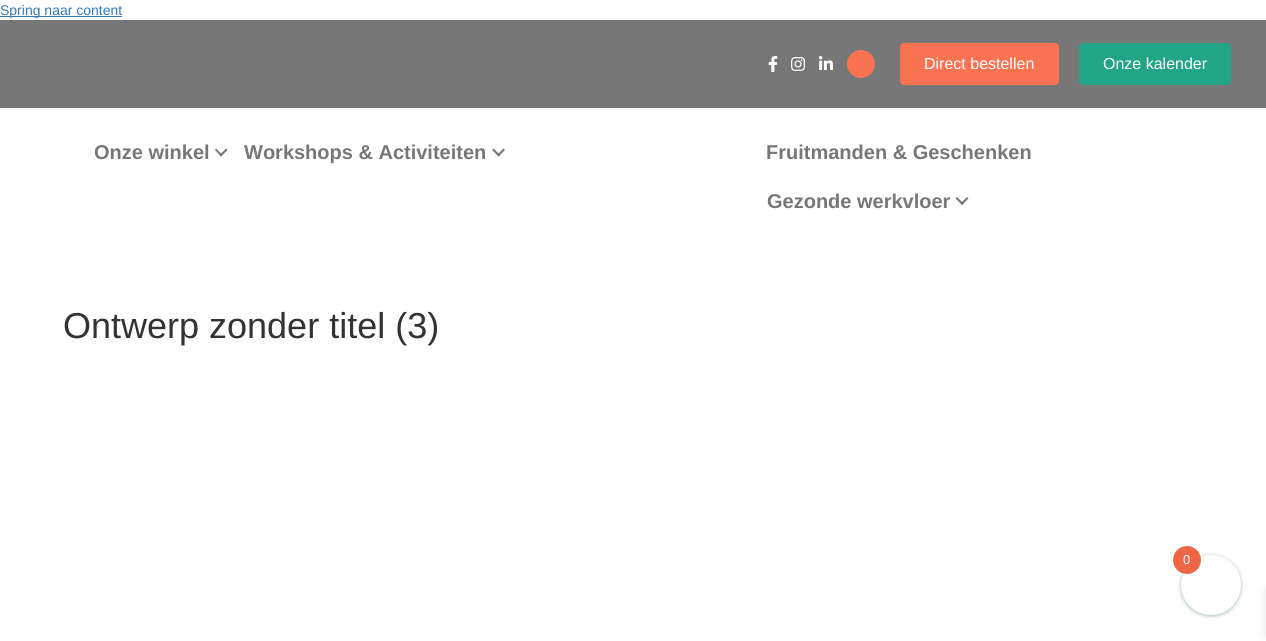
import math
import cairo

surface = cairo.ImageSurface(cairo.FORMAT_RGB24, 1266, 641)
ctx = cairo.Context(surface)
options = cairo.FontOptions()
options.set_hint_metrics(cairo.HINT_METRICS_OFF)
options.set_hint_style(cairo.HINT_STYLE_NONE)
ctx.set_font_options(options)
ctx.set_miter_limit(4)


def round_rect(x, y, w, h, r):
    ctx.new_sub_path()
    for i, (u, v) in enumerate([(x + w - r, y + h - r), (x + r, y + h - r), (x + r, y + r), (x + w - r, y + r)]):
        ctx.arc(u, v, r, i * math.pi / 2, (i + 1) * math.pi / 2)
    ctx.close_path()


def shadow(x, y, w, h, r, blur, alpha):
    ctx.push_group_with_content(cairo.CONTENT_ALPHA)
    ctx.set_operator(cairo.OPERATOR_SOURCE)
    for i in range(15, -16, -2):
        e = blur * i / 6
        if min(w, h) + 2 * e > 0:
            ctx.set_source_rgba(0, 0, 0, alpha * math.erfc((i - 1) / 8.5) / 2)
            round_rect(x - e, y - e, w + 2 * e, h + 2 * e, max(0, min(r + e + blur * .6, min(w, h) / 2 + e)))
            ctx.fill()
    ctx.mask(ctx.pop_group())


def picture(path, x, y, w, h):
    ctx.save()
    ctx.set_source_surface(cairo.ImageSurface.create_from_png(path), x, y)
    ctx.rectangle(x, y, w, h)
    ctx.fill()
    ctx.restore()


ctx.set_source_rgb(1, 1, 1)
ctx.paint()
ctx.set_source_rgb(0.2, 0.478, 0.718)
ctx.rectangle(0, 16, 122, 1)
ctx.fill()
ctx.select_font_face("Liberation Sans")
ctx.set_font_size(14)
ctx.move_to(0, 15)
ctx.show_text("Spring naar content")
ctx.set_source_rgb(0.467, 0.467, 0.467)
ctx.rectangle(0, 20, 1266, 88)
ctx.fill()
picture("img1.png", 768, 56, 10, 16)
picture("img2.png", 791, 57, 14, 14)
picture("img3.png", 819, 56, 14, 14)
ctx.set_source_rgb(0.976, 0.451, 0.322)
ctx.arc(861, 64, 14, 0, 2 * math.pi)
ctx.fill()
round_rect(900, 43, 159, 42, 4)
ctx.fill()
ctx.set_font_size(16)
ctx.set_source_rgb(1, 1, 1)
ctx.move_to(924, 69)
ctx.show_text("Direct bestellen")
ctx.set_source_rgb(0.129, 0.647, 0.525)
round_rect(1079, 43, 152, 42, 4)
ctx.fill()
ctx.set_source_rgb(1, 1, 1)
ctx.move_to(1103, 69)
ctx.show_text("Onze kalender")
ctx.select_font_face("Liberation Sans", cairo.FONT_SLANT_NORMAL, cairo.FONT_WEIGHT_BOLD)
ctx.set_font_size(20)
ctx.set_source_rgb(0.467, 0.467, 0.467)
ctx.move_to(94, 159)
ctx.show_text("Onze winkel")
ctx.new_path()
ctx.move_to(226, 148.5)
ctx.line_to(227.5, 150)
ctx.line_to(221, 156.5)
ctx.line_to(219.5, 155)
ctx.close_path()
ctx.fill()
ctx.new_path()
ctx.move_to(216, 148.5)
ctx.line_to(222.5, 155)
ctx.line_to(221, 156.5)
ctx.line_to(215, 150)
ctx.close_path()
ctx.fill()
ctx.move_to(244, 159)
ctx.show_text("Workshops & Activiteiten")
ctx.new_path()
ctx.move_to(503.5, 148.5)
ctx.line_to(505, 150)
ctx.line_to(498.5, 156.5)
ctx.line_to(497, 155)
ctx.close_path()
ctx.fill()
ctx.new_path()
ctx.move_to(493.5, 148.5)
ctx.line_to(500, 155)
ctx.line_to(498.5, 156.5)
ctx.line_to(492, 150)
ctx.close_path()
ctx.fill()
ctx.move_to(766, 159)
ctx.show_text("Fruitmanden & Geschenken")
ctx.move_to(767, 208)
ctx.show_text("Gezonde werkvloer")
ctx.new_path()
ctx.move_to(967, 197)
ctx.line_to(968.5, 198.5)
ctx.line_to(962, 205)
ctx.line_to(960.5, 203.5)
ctx.close_path()
ctx.fill()
ctx.new_path()
ctx.move_to(957, 197)
ctx.line_to(963.5, 203.5)
ctx.line_to(962, 205)
ctx.line_to(955.5, 198.5)
ctx.close_path()
ctx.fill()
ctx.select_font_face("Liberation Sans")
ctx.set_font_size(36)
ctx.set_source_rgb(0.2, 0.2, 0.2)
ctx.move_to(63, 338)
ctx.show_text("Ontwerp zonder titel (3)")
ctx.set_source_rgb(0.643, 0.737, 0.698)
shadow(1181, 556, 60, 60, 30, 2, 1)
ctx.set_source_rgb(1, 1, 1)
ctx.arc(1211, 585, 30, 0, 2 * math.pi)
ctx.fill()
ctx.set_source_rgb(0.929, 0.404, 0.275)
ctx.arc(1187, 560, 14, 0, 2 * math.pi)
ctx.fill()
ctx.set_font_size(13)
ctx.set_source_rgb(1, 1, 1)
ctx.move_to(1183, 564)
ctx.show_text("0")
ctx.set_source_rgb(0, 0, 0)
shadow(1266, 590, 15, 46, 0, 5, 0.1)
surface.write_to_png("page.png")
